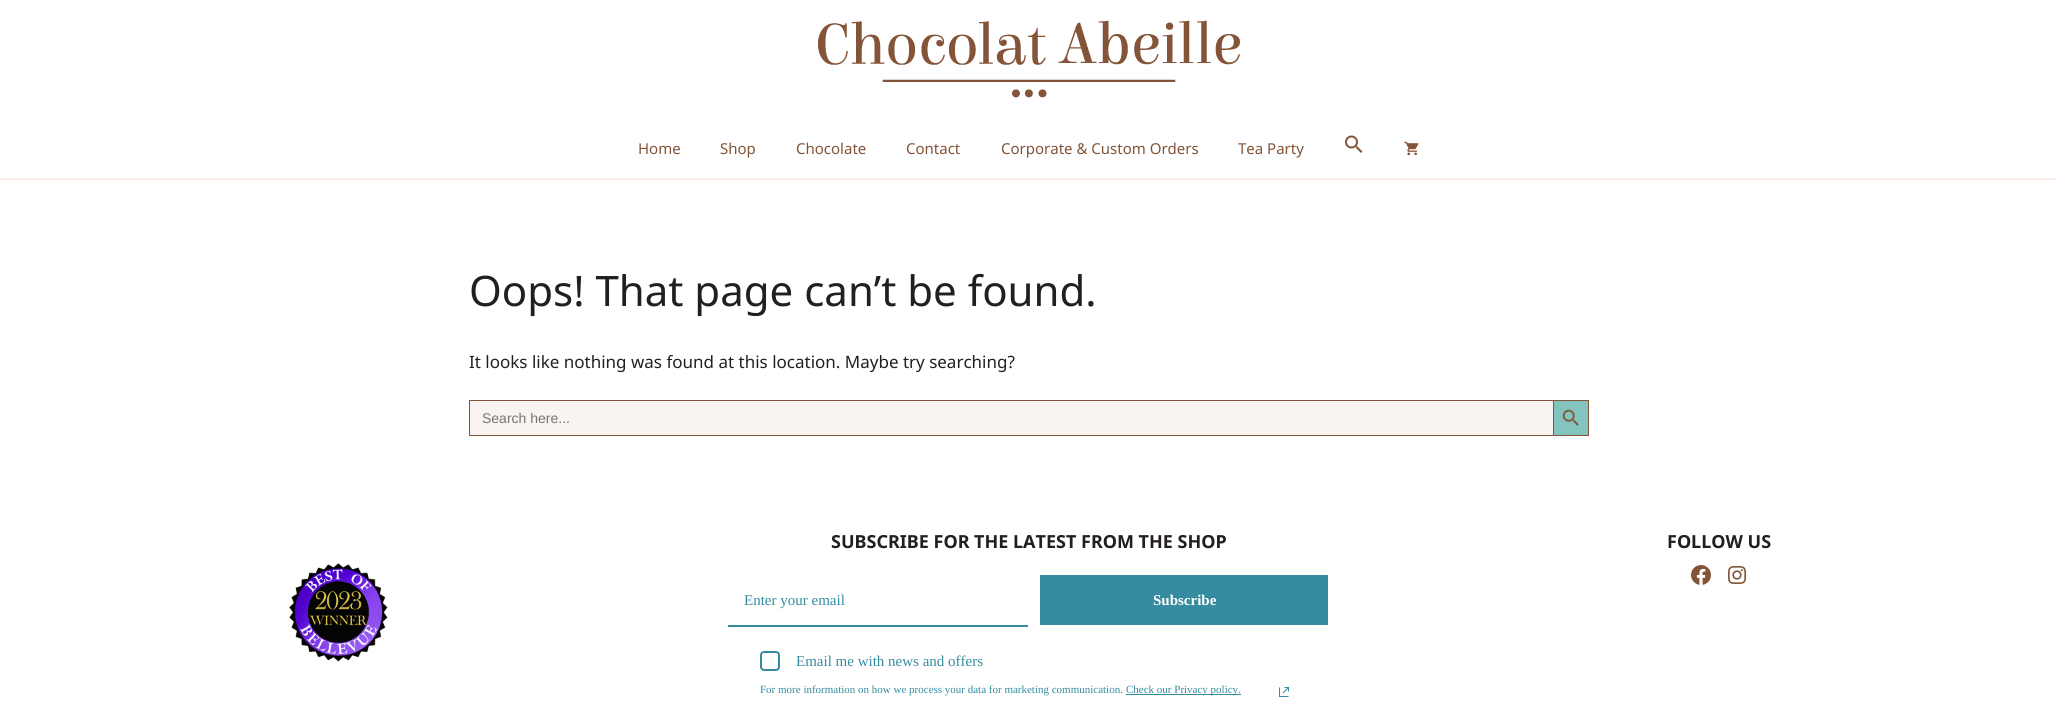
import math
import cairo

surface = cairo.ImageSurface(cairo.FORMAT_RGB24, 2057, 715)
ctx = cairo.Context(surface)
options = cairo.FontOptions()
options.set_hint_metrics(cairo.HINT_METRICS_OFF)
options.set_hint_style(cairo.HINT_STYLE_NONE)
ctx.set_font_options(options)
ctx.set_miter_limit(4)


def round_rect(x, y, w, h, r):
    ctx.new_sub_path()
    for i, (u, v) in enumerate([(x + w - r, y + h - r), (x + r, y + h - r), (x + r, y + r), (x + w - r, y + r)]):
        ctx.arc(u, v, r, i * math.pi / 2, (i + 1) * math.pi / 2)
    ctx.close_path()


def picture(path, x, y, w, h):
    ctx.save()
    ctx.set_source_surface(cairo.ImageSurface.create_from_png(path), x, y)
    ctx.rectangle(x, y, w, h)
    ctx.fill()
    ctx.restore()


ctx.set_source_rgb(1, 1, 1)
ctx.paint()
picture("img1.png", 818, 20, 422, 78)
ctx.set_source_rgb(0.992, 0.929, 0.906)
ctx.rectangle(0, 178, 2057, 2)
ctx.fill()
ctx.select_font_face("Noto Sans")
ctx.set_font_size(15)
ctx.set_source_rgb(0.514, 0.329, 0.216)
ctx.move_to(638, 154)
ctx.show_text("Home")
ctx.move_to(720, 154)
ctx.show_text("Shop")
ctx.move_to(796, 154)
ctx.show_text("Chocolate")
ctx.move_to(906, 154)
ctx.show_text("Contact")
ctx.move_to(1001, 154)
ctx.show_text("Corporate & Custom Orders")
ctx.move_to(1238, 154)
ctx.show_text("Tea Party")
picture("img2.png", 1345, 135, 18, 18)
picture("img3.png", 1404, 141, 15, 15)
ctx.set_font_size(42)
ctx.set_source_rgb(0.137, 0.122, 0.125)
ctx.move_to(469, 306)
ctx.show_text("Oops! That page can’t be found.")
ctx.set_font_size(17)
ctx.move_to(469, 368)
ctx.show_text("It looks like nothing was found at this location. Maybe try searching?")
ctx.set_source_rgb(0.973, 0.957, 0.945)
ctx.rectangle(470, 401, 1083, 34)
ctx.fill()
ctx.set_source_rgb(0.514, 0.329, 0.216)
ctx.rectangle(469, 400, 1084, 1)
ctx.fill()
ctx.rectangle(469, 435, 1084, 1)
ctx.fill()
ctx.rectangle(469, 400, 1, 36)
ctx.fill()
ctx.select_font_face("Liberation Sans")
ctx.set_font_size(14)
ctx.set_source_rgb(0.459, 0.459, 0.459)
ctx.move_to(482, 423)
ctx.show_text("Search here...")
ctx.set_source_rgb(0.514, 0.773, 0.745)
ctx.rectangle(1553.5, 400.5, 35, 35)
ctx.fill_preserve()
ctx.set_source_rgb(0.514, 0.329, 0.216)
ctx.set_line_width(1)
ctx.stroke()
picture("img4.png", 1562, 409, 17, 17)
ctx.select_font_face("Noto Sans", cairo.FONT_SLANT_NORMAL, cairo.FONT_WEIGHT_BOLD)
ctx.set_font_size(18)
ctx.set_source_rgb(0.137, 0.122, 0.125)
ctx.move_to(831, 548)
ctx.show_text("SUBSCRIBE FOR THE LATEST FROM THE SHOP")
ctx.set_source_rgb(0.208, 0.545, 0.624)
ctx.rectangle(728, 625, 300, 2)
ctx.fill()
ctx.select_font_face("Liberation Serif")
ctx.set_font_size(15)
ctx.move_to(744, 605)
ctx.show_text("Enter your email")
ctx.rectangle(1040, 575, 288, 50)
ctx.fill()
ctx.select_font_face("Liberation Serif", cairo.FONT_SLANT_NORMAL, cairo.FONT_WEIGHT_BOLD)
ctx.set_source_rgb(1, 1, 1)
ctx.move_to(1153, 605)
ctx.show_text("Subscribe")
round_rect(761, 652, 18, 18, 3)
ctx.set_source_rgb(0.208, 0.545, 0.624)
ctx.set_line_width(2)
ctx.stroke()
ctx.select_font_face("Liberation Serif")
ctx.move_to(796, 666)
ctx.show_text("Email me with news and offers")
ctx.set_font_size(11)
ctx.move_to(760, 693)
ctx.show_text("For more information on how we process your data for marketing communication.")
ctx.rectangle(1126, 694, 115, 1)
ctx.fill()
ctx.move_to(1126, 693)
ctx.show_text("Check our Privacy policy.")
picture("img5.png", 1279, 687, 10, 10)
ctx.select_font_face("Noto Sans", cairo.FONT_SLANT_NORMAL, cairo.FONT_WEIGHT_BOLD)
ctx.set_font_size(18)
ctx.set_source_rgb(0.137, 0.122, 0.125)
ctx.move_to(1667, 548)
ctx.show_text("FOLLOW US")
picture("img6.png", 1691, 565, 20, 20)
picture("img7.png", 1728, 566, 18, 18)
picture("img8.png", 289, 563, 99, 99)
surface.write_to_png("page.png")
